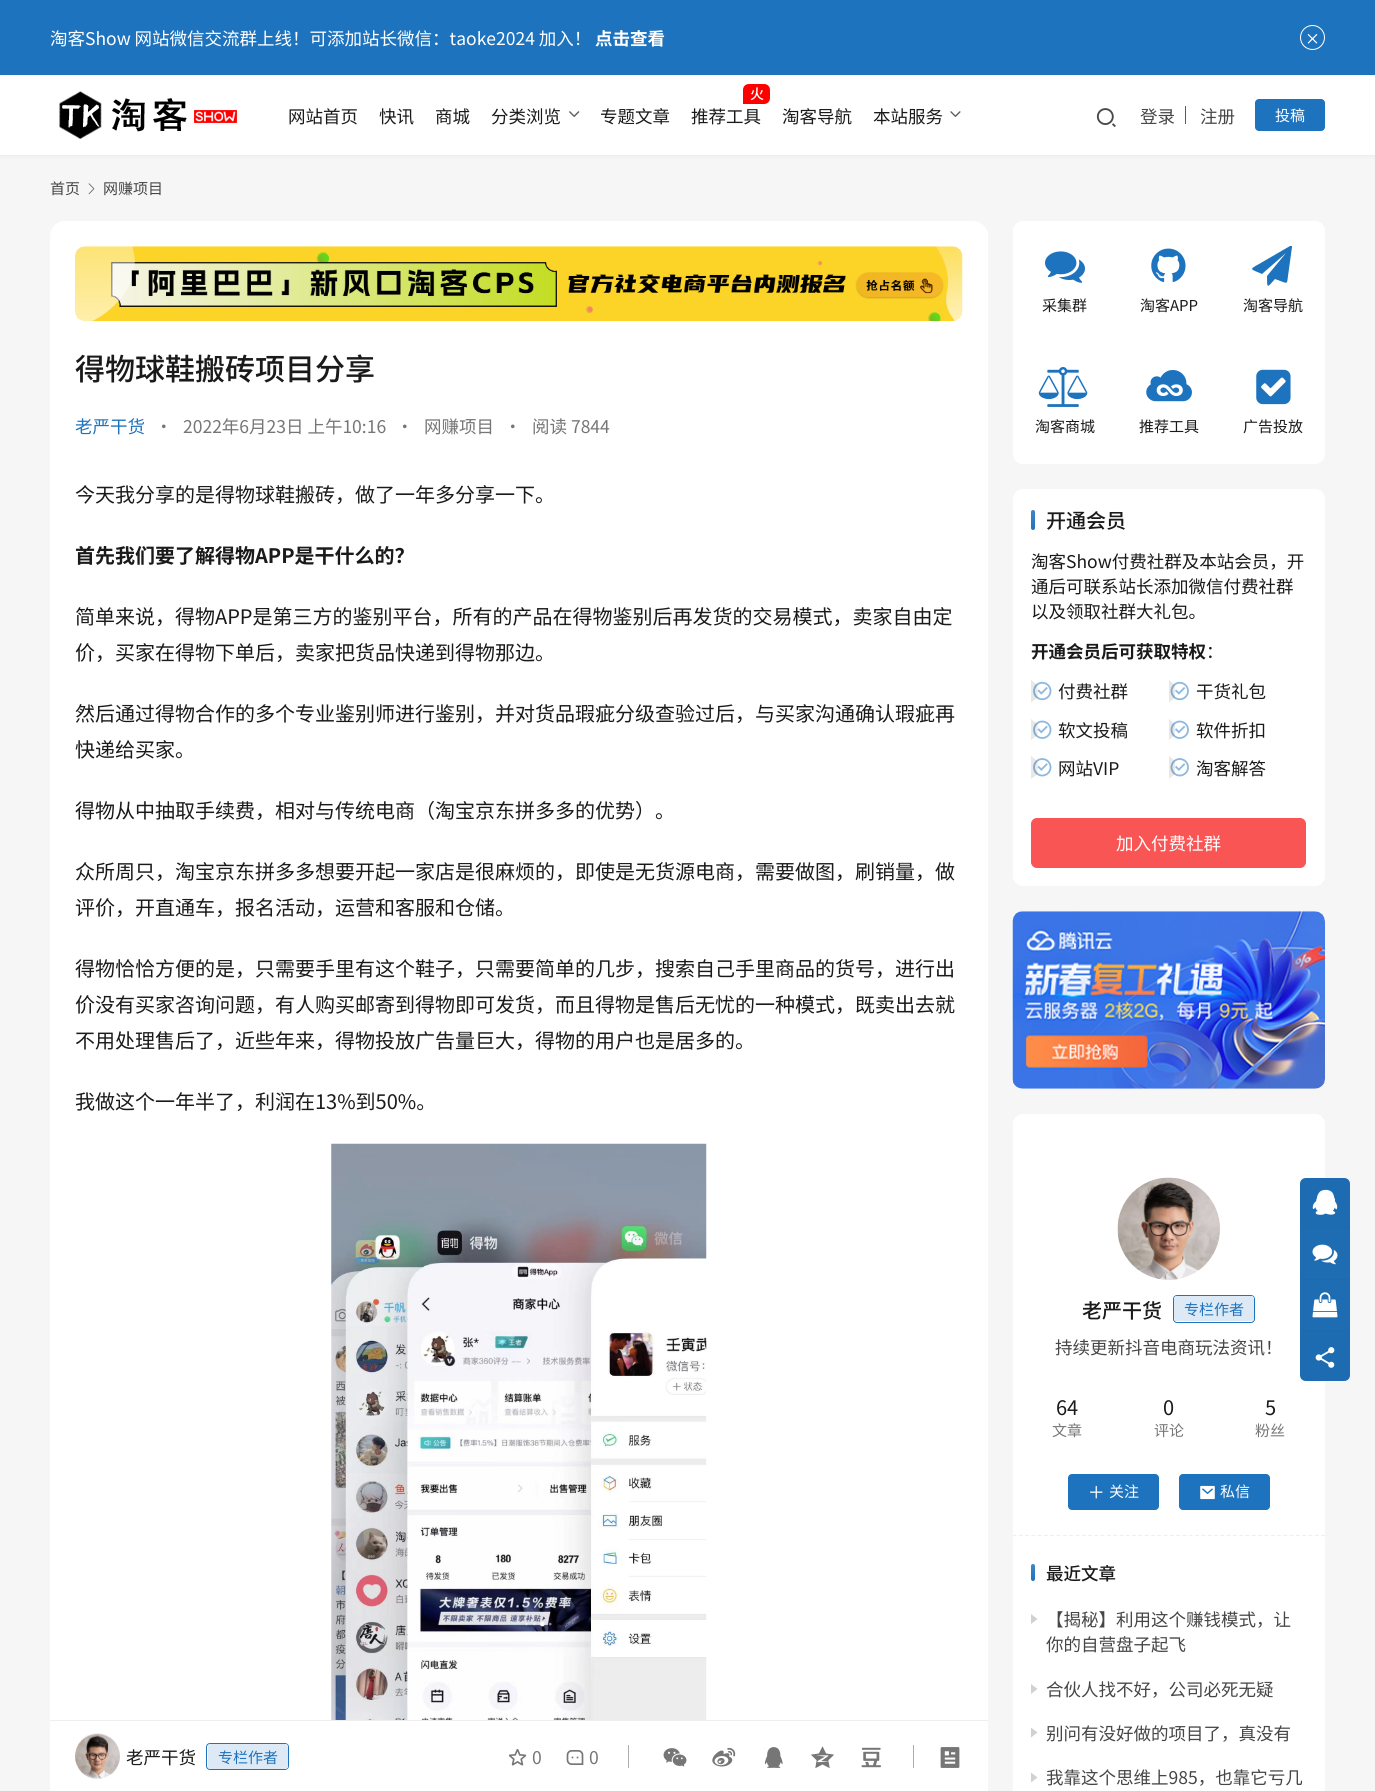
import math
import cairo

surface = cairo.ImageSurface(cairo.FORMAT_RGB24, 1375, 1791)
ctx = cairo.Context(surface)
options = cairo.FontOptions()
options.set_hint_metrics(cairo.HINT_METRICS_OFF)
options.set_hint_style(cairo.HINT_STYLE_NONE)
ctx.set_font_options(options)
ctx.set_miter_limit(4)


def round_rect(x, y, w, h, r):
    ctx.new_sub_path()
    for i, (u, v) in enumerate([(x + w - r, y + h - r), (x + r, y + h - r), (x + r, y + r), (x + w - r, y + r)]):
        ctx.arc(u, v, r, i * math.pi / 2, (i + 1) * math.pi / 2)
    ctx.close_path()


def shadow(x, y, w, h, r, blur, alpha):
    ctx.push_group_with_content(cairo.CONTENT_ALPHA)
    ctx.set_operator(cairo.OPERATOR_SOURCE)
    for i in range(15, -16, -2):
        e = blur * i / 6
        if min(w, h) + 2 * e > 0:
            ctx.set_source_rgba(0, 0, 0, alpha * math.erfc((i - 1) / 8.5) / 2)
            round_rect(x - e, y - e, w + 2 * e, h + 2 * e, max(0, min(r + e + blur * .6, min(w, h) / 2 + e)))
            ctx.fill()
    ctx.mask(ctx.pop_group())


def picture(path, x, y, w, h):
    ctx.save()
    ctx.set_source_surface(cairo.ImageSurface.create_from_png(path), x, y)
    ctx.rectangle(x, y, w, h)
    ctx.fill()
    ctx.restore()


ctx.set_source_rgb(0.961, 0.961, 0.961)
ctx.paint()
ctx.set_source_rgb(0.102, 0.102, 0.102)
shadow(-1, 74, 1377, 82, 0, 2, 0.06)
ctx.set_source_rgb(0.118, 0.451, 0.745)
ctx.rectangle(0, 0, 1375, 75)
ctx.fill()
ctx.select_font_face("Noto Sans CJK SC")
ctx.set_font_size(17.5)
ctx.set_source_rgb(1, 1, 1)
ctx.move_to(50, 45)
ctx.show_text("淘客Show 网站微信交流群上线！可添加站长微信：taoke2024 加入！")
ctx.select_font_face("Noto Sans CJK SC", cairo.FONT_SLANT_NORMAL, cairo.FONT_WEIGHT_BOLD)
ctx.move_to(595, 45)
ctx.show_text("点击查看")
ctx.new_path()
ctx.arc(1312.5, 37.5, 12, 0, 2 * math.pi)
ctx.set_line_width(1)
ctx.stroke()
picture("img1.png", 1307, 34, 11, 10)
ctx.rectangle(0, 75, 1375, 80)
ctx.fill()
picture("img2.png", 59, 91, 178, 48)
ctx.select_font_face("Noto Sans CJK SC")
ctx.set_source_rgb(0.102, 0.102, 0.102)
ctx.move_to(288, 123)
ctx.show_text("网站首页")
ctx.move_to(379, 123)
ctx.show_text("快讯")
ctx.move_to(435, 123)
ctx.show_text("商城")
ctx.move_to(491, 123)
ctx.show_text("分类浏览")
picture("img3.png", 569, 111, 11, 6)
ctx.move_to(600, 123)
ctx.show_text("专题文章")
ctx.set_source_rgb(1, 0, 0)
ctx.new_path()
ctx.move_to(749, 84)
ctx.line_to(764, 84)
ctx.curve_to(767.5, 84, 770, 86.5, 770, 90)
ctx.line_to(770, 98)
ctx.curve_to(770, 101.5, 767.5, 104, 764, 104)
ctx.line_to(743, 104)
ctx.line_to(743, 90)
ctx.curve_to(743, 86.5, 745.5, 84, 749, 84)
ctx.close_path()
ctx.fill()
ctx.select_font_face("Noto Sans CJK SC Medium")
ctx.set_font_size(14)
ctx.set_source_rgb(1, 1, 1)
ctx.move_to(750, 99)
ctx.show_text("火")
ctx.select_font_face("Noto Sans CJK SC")
ctx.set_font_size(17.5)
ctx.set_source_rgb(0.102, 0.102, 0.102)
ctx.move_to(691, 123)
ctx.show_text("推荐工具")
ctx.move_to(782, 123)
ctx.show_text("淘客导航")
ctx.move_to(873, 123)
ctx.show_text("本站服务")
picture("img4.png", 950, 111, 11, 6)
picture("img5.png", 1096, 108, 20, 20)
ctx.set_source_rgb(0.275, 0.275, 0.275)
ctx.move_to(1140, 123)
ctx.show_text("登录")
ctx.set_source_rgb(0.353, 0.353, 0.353)
ctx.rectangle(1185, 106, 1, 18)
ctx.fill()
ctx.set_source_rgb(0.275, 0.275, 0.275)
ctx.move_to(1200, 123)
ctx.show_text("注册")
ctx.set_source_rgb(0.118, 0.451, 0.745)
round_rect(1255.5, 99.5, 69, 31, 3.5)
ctx.fill_preserve()
ctx.stroke()
ctx.set_font_size(15)
ctx.set_source_rgb(1, 1, 1)
ctx.move_to(1275, 121)
ctx.show_text("投稿")
ctx.set_source_rgb(0.275, 0.275, 0.275)
ctx.move_to(50, 194)
ctx.show_text("首页")
picture("img6.png", 88, 183, 7, 12)
ctx.move_to(103, 194)
ctx.show_text("网赚项目")
ctx.set_source_rgb(1, 1, 1)
round_rect(50, 221, 938, 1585, 15)
ctx.fill()
picture("img7.png", 75, 246, 888, 76)
ctx.select_font_face("Noto Sans CJK SC Medium")
ctx.set_font_size(30)
ctx.set_source_rgb(0.102, 0.102, 0.102)
ctx.move_to(75, 380)
ctx.show_text("得物球鞋搬砖项目分享")
ctx.select_font_face("Noto Sans CJK SC")
ctx.set_font_size(17.5)
ctx.set_source_rgb(0.118, 0.451, 0.745)
ctx.move_to(75, 433)
ctx.show_text("老严干货")
ctx.set_source_rgb(0.463, 0.463, 0.463)
ctx.move_to(155, 433)
ctx.show_text("•")
ctx.move_to(183, 433)
ctx.show_text("2022年6月23日 上午10:16")
ctx.move_to(396, 433)
ctx.show_text("•")
ctx.move_to(424, 433)
ctx.show_text("网赚项目")
ctx.move_to(504, 433)
ctx.show_text("•")
ctx.move_to(532, 433)
ctx.show_text("阅读 7844")
ctx.set_font_size(20)
ctx.set_source_rgb(0.102, 0.102, 0.102)
ctx.move_to(75, 502)
ctx.show_text("今天我分享的是得物球鞋搬砖，做了一年多分享一下。")
ctx.select_font_face("Noto Sans CJK SC", cairo.FONT_SLANT_NORMAL, cairo.FONT_WEIGHT_BOLD)
ctx.move_to(75, 563)
ctx.show_text("首先我们要了解得物APP是干什么的？")
ctx.select_font_face("Noto Sans CJK SC")
ctx.move_to(75, 624)
ctx.show_text("简单来说，得物APP是第三方的鉴别平台，所有的产品在得物鉴别后再发货的交易模式，卖家自由定")
ctx.move_to(75, 660)
ctx.show_text("价，买家在得物下单后，卖家把货品快递到得物那边。")
ctx.move_to(75, 721)
ctx.show_text("然后通过得物合作的多个专业鉴别师进行鉴别，并对货品瑕疵分级查验过后，与买家沟通确认瑕疵再")
ctx.move_to(75, 757)
ctx.show_text("快递给买家。")
ctx.move_to(75, 818)
ctx.show_text("得物从中抽取手续费，相对与传统电商（淘宝京东拼多多的优势）。")
ctx.move_to(75, 879)
ctx.show_text("众所周只，淘宝京东拼多多想要开起一家店是很麻烦的，即使是无货源电商，需要做图，刷销量，做")
ctx.move_to(75, 915)
ctx.show_text("评价，开直通车，报名活动，运营和客服和仓储。")
ctx.move_to(75, 976)
ctx.show_text("得物恰恰方便的是，只需要手里有这个鞋子，只需要简单的几步，搜索自己手里商品的货号，进行出")
ctx.move_to(75, 1012)
ctx.show_text("价没有买家咨询问题，有人购买邮寄到得物即可发货，而且得物是售后无忧的一种模式，既卖出去就")
ctx.move_to(75, 1048)
ctx.show_text("不用处理售后了，近些年来，得物投放广告量巨大，得物的用户也是居多的。")
ctx.move_to(75, 1109)
ctx.show_text("我做这个一年半了，利润在13%到50%。")
picture("img8.png", 331, 1143, 376, 577)
ctx.set_source_rgb(0.937, 0.937, 0.937)
ctx.rectangle(50, 1720, 938, 1)
ctx.fill()
picture("img9.png", 75, 1733, 45, 46)
ctx.set_font_size(17.5)
ctx.set_source_rgb(0.102, 0.102, 0.102)
ctx.move_to(126, 1764)
ctx.show_text("老严干货")
round_rect(206.5, 1743.5, 82, 26, 3.5)
ctx.set_source_rgb(0.118, 0.451, 0.745)
ctx.stroke()
ctx.set_source_rgb(1, 1, 1)
round_rect(208, 1744, 80, 25, 2.5)
ctx.fill()
ctx.set_font_size(15)
ctx.set_source_rgb(0.118, 0.451, 0.745)
ctx.move_to(218, 1763)
ctx.show_text("专栏作者")
ctx.set_source_rgba(0.118, 0.451, 0.745, 0.15)
round_rect(208, 1744, 80, 25, 2.5)
ctx.fill()
picture("img10.png", 508, 1749, 19, 17)
ctx.set_font_size(17.5)
ctx.set_source_rgb(0.463, 0.463, 0.463)
ctx.move_to(532, 1764)
ctx.show_text("0")
picture("img11.png", 566, 1750, 18, 15)
ctx.move_to(589, 1764)
ctx.show_text("0")
ctx.set_source_rgb(0.678, 0.678, 0.678)
ctx.rectangle(628, 1745, 1, 23)
ctx.fill()
picture("img12.png", 663, 1748, 24, 19)
picture("img13.png", 712, 1747, 24, 20)
picture("img14.png", 764, 1747, 19, 21)
picture("img15.png", 811, 1746, 23, 23)
picture("img16.png", 861, 1747, 20, 21)
ctx.rectangle(913, 1745, 1, 23)
ctx.fill()
picture("img17.png", 940, 1747, 20, 21)
ctx.set_source_rgb(1, 1, 1)
round_rect(1013, 221, 312, 243, 10)
ctx.fill()
picture("img18.png", 1045, 251, 40, 32)
ctx.set_font_size(15)
ctx.set_source_rgb(0.102, 0.102, 0.102)
ctx.move_to(1042, 311)
ctx.show_text("采集群")
picture("img19.png", 1151, 248, 35, 34)
ctx.move_to(1140, 311)
ctx.show_text("淘客APP")
ctx.set_source_rgb(0.118, 0.451, 0.745)
ctx.new_path()
ctx.move_to(1292, 246)
ctx.line_to(1292, 247)
ctx.line_to(1288, 276)
ctx.curve_to(1287, 282, 1288, 284, 1283, 282)
ctx.line_to(1275, 279)
ctx.curve_to(1267, 288, 1267, 289, 1267, 276)
ctx.line_to(1286, 253)
ctx.line_to(1262, 274)
ctx.curve_to(1251, 269, 1248, 270, 1259, 264)
ctx.line_to(1290, 246)
ctx.close_path()
ctx.fill()
ctx.set_source_rgb(0.102, 0.102, 0.102)
ctx.move_to(1243, 311)
ctx.show_text("淘客导航")
picture("img20.png", 1038, 367, 50, 40)
ctx.move_to(1035, 432)
ctx.show_text("淘客商城")
picture("img21.png", 1146, 370, 46, 32)
ctx.move_to(1139, 432)
ctx.show_text("推荐工具")
picture("img22.png", 1256, 369, 35, 36)
ctx.move_to(1243, 432)
ctx.show_text("广告投放")
ctx.set_source_rgb(1, 1, 1)
round_rect(1013, 489, 312, 397, 10)
ctx.fill()
ctx.set_source_rgb(0.118, 0.451, 0.745)
round_rect(1031, 510, 4, 20, 2)
ctx.fill()
gradient = cairo.LinearGradient(1033, 510, 1033, 530)
gradient.add_color_stop_rgba(0, 1, 1, 1, 0.15)
gradient.add_color_stop_rgba(1, 1, 1, 1, 0)
ctx.set_source(gradient)
round_rect(1031, 510, 4, 20, 2)
ctx.fill()
ctx.select_font_face("Noto Sans CJK SC Medium")
ctx.set_font_size(20)
ctx.set_source_rgb(0.102, 0.102, 0.102)
ctx.move_to(1046, 528)
ctx.show_text("开通会员")
ctx.select_font_face("Noto Sans CJK SC")
ctx.set_font_size(17.5)
ctx.move_to(1031, 568)
ctx.show_text("淘客Show付费社群及本站会员，开")
ctx.move_to(1031, 593)
ctx.show_text("通后可联系站长添加微信付费社群")
ctx.move_to(1031, 618)
ctx.show_text("以及领取社群大礼包。")
ctx.select_font_face("Noto Sans CJK SC", cairo.FONT_SLANT_NORMAL, cairo.FONT_WEIGHT_BOLD)
ctx.move_to(1031, 658)
ctx.show_text("开通会员后可获取特权")
ctx.select_font_face("Noto Sans CJK SC")
ctx.move_to(1206, 658)
ctx.show_text("：")
picture("img23.png", 1033, 681, 19, 20)
ctx.set_source_rgba(0.102, 0.102, 0.102, 0.1)
ctx.new_path()
ctx.move_to(1031, 702.5)
ctx.line_to(1031, 680)
ctx.line_to(1037.5, 685)
ctx.line_to(1037.5, 697.5)
ctx.close_path()
ctx.fill()
ctx.set_source_rgb(0.102, 0.102, 0.102)
ctx.move_to(1058, 698)
ctx.show_text("付费社群")
picture("img24.png", 1170, 681, 19, 20)
ctx.set_source_rgba(0.102, 0.102, 0.102, 0.1)
ctx.new_path()
ctx.move_to(1169, 702.5)
ctx.line_to(1169, 680)
ctx.line_to(1175, 685)
ctx.line_to(1175, 697.5)
ctx.close_path()
ctx.fill()
ctx.set_source_rgb(0.102, 0.102, 0.102)
ctx.move_to(1196, 698)
ctx.show_text("干货礼包")
picture("img25.png", 1033, 720, 19, 19)
ctx.set_source_rgba(0.102, 0.102, 0.102, 0.1)
ctx.new_path()
ctx.move_to(1031, 740)
ctx.line_to(1031, 719)
ctx.line_to(1037.5, 724)
ctx.line_to(1037.5, 735)
ctx.close_path()
ctx.fill()
ctx.set_source_rgb(0.102, 0.102, 0.102)
ctx.move_to(1058, 737)
ctx.show_text("软文投稿")
picture("img26.png", 1170, 720, 19, 19)
ctx.set_source_rgba(0.102, 0.102, 0.102, 0.1)
ctx.new_path()
ctx.move_to(1169, 740)
ctx.line_to(1169, 719)
ctx.line_to(1175, 724)
ctx.line_to(1175, 735)
ctx.close_path()
ctx.fill()
ctx.set_source_rgb(0.102, 0.102, 0.102)
ctx.move_to(1196, 737)
ctx.show_text("软件折扣")
picture("img27.png", 1033, 758, 19, 19)
ctx.set_source_rgba(0.102, 0.102, 0.102, 0.1)
ctx.new_path()
ctx.move_to(1031, 779)
ctx.line_to(1031, 756)
ctx.line_to(1037.5, 761)
ctx.line_to(1037.5, 774)
ctx.close_path()
ctx.fill()
ctx.set_source_rgb(0.102, 0.102, 0.102)
ctx.move_to(1058, 775)
ctx.show_text("网站VIP")
picture("img28.png", 1170, 758, 19, 19)
ctx.set_source_rgba(0.102, 0.102, 0.102, 0.1)
ctx.new_path()
ctx.move_to(1169, 779)
ctx.line_to(1169, 756)
ctx.line_to(1175, 761)
ctx.line_to(1175, 774)
ctx.close_path()
ctx.fill()
ctx.set_source_rgb(0.102, 0.102, 0.102)
ctx.move_to(1196, 775)
ctx.show_text("淘客解答")
ctx.set_source_rgb(0.98, 0.333, 0.333)
round_rect(1031.5, 818.5, 274, 49, 5.5)
ctx.fill_preserve()
ctx.stroke()
ctx.set_source_rgb(1, 1, 1)
ctx.move_to(1116, 850)
ctx.show_text("加入付费社群")
picture("img29.png", 1012, 911, 313, 178)
round_rect(1013, 1114, 312, 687, 10)
ctx.fill()
picture("img30.png", 1117, 1177, 103, 103)
ctx.select_font_face("Noto Sans CJK SC Medium")
ctx.set_font_size(20)
ctx.set_source_rgb(0.102, 0.102, 0.102)
ctx.move_to(1082, 1318)
ctx.show_text("老严干货")
round_rect(1173.5, 1295.5, 81, 27, 3.5)
ctx.set_source_rgb(0.118, 0.451, 0.745)
ctx.stroke()
ctx.set_source_rgb(1, 1, 1)
round_rect(1174, 1296, 80, 25, 2.5)
ctx.fill()
ctx.select_font_face("Noto Sans CJK SC")
ctx.set_font_size(15)
ctx.set_source_rgb(0.118, 0.451, 0.745)
ctx.move_to(1184, 1315)
ctx.show_text("专栏作者")
ctx.set_source_rgba(0.118, 0.451, 0.745, 0.15)
round_rect(1174, 1296, 80, 25, 2.5)
ctx.fill()
ctx.set_font_size(17.5)
ctx.set_source_rgb(0.275, 0.275, 0.275)
ctx.move_to(1055, 1354)
ctx.show_text("持续更新抖音电商玩法资讯！")
ctx.set_font_size(20)
ctx.set_source_rgb(0.102, 0.102, 0.102)
ctx.move_to(1056, 1415)
ctx.show_text("64")
ctx.set_font_size(15)
ctx.set_source_rgb(0.463, 0.463, 0.463)
ctx.move_to(1052, 1436)
ctx.show_text("文章")
ctx.set_font_size(20)
ctx.set_source_rgb(0.102, 0.102, 0.102)
ctx.move_to(1163, 1415)
ctx.show_text("0")
ctx.set_font_size(15)
ctx.set_source_rgb(0.463, 0.463, 0.463)
ctx.move_to(1154, 1436)
ctx.show_text("评论")
ctx.set_font_size(20)
ctx.set_source_rgb(0.102, 0.102, 0.102)
ctx.move_to(1265, 1415)
ctx.show_text("5")
ctx.set_font_size(15)
ctx.set_source_rgb(0.463, 0.463, 0.463)
ctx.move_to(1255, 1436)
ctx.show_text("粉丝")
ctx.set_source_rgb(0.118, 0.451, 0.745)
round_rect(1068.5, 1474.5, 90, 35, 3.5)
ctx.fill_preserve()
ctx.stroke()
picture("img31.png", 1090, 1485, 13, 14)
ctx.set_source_rgb(1, 1, 1)
ctx.move_to(1109, 1497)
ctx.show_text("关注")
ctx.set_source_rgb(0.118, 0.451, 0.745)
round_rect(1179.5, 1474.5, 90, 35, 3.5)
ctx.fill_preserve()
ctx.stroke()
picture("img32.png", 1200, 1485, 15, 15)
ctx.set_source_rgb(1, 1, 1)
ctx.move_to(1220, 1497)
ctx.show_text("私信")
ctx.new_path()
ctx.move_to(1012.5, 1535.5)
ctx.line_to(1325, 1535.5)
ctx.set_source_rgb(0.937, 0.937, 0.937)
ctx.set_line_width(1.2)
ctx.set_dash([3.75, 2.55])
ctx.stroke()
ctx.set_source_rgb(0.118, 0.451, 0.745)
round_rect(1031, 1564, 4, 17, 2)
ctx.fill()
gradient = cairo.LinearGradient(1033, 1564, 1033, 1581)
gradient.add_color_stop_rgba(0, 1, 1, 1, 0.15)
gradient.add_color_stop_rgba(1, 1, 1, 1, 0)
ctx.set_source(gradient)
round_rect(1031, 1564, 4, 17, 2)
ctx.fill()
ctx.select_font_face("Noto Sans CJK SC Medium")
ctx.set_font_size(17.5)
ctx.set_source_rgb(0.102, 0.102, 0.102)
ctx.move_to(1046, 1580)
ctx.show_text("最近文章")
ctx.set_source_rgb(0.82, 0.82, 0.82)
ctx.new_path()
ctx.move_to(1031, 1624)
ctx.line_to(1031, 1614)
ctx.line_to(1037.5, 1619)
ctx.close_path()
ctx.fill()
ctx.select_font_face("Noto Sans CJK SC")
ctx.set_source_rgb(0.275, 0.275, 0.275)
ctx.move_to(1046, 1626)
ctx.show_text("【揭秘】利用这个赚钱模式，让")
ctx.move_to(1046, 1651)
ctx.show_text("你的自营盘子起飞")
ctx.set_source_rgb(0.82, 0.82, 0.82)
ctx.new_path()
ctx.move_to(1031, 1694)
ctx.line_to(1031, 1684)
ctx.line_to(1037.5, 1689)
ctx.close_path()
ctx.fill()
ctx.set_source_rgb(0.275, 0.275, 0.275)
ctx.move_to(1046, 1696)
ctx.show_text("合伙人找不好，公司必死无疑")
ctx.set_source_rgb(0.82, 0.82, 0.82)
ctx.new_path()
ctx.move_to(1031, 1737.5)
ctx.line_to(1031, 1727.5)
ctx.line_to(1037.5, 1732.5)
ctx.close_path()
ctx.fill()
ctx.set_source_rgb(0.275, 0.275, 0.275)
ctx.move_to(1046, 1740)
ctx.show_text("别问有没好做的项目了，真没有")
ctx.set_source_rgb(0.82, 0.82, 0.82)
ctx.new_path()
ctx.move_to(1031, 1782.5)
ctx.line_to(1031, 1772.5)
ctx.line_to(1037.5, 1777.5)
ctx.close_path()
ctx.fill()
ctx.set_source_rgb(0.275, 0.275, 0.275)
ctx.move_to(1046, 1784)
ctx.show_text("我靠这个思维上985，也靠它亏几")
ctx.set_source_rgb(0.118, 0.451, 0.745)
ctx.new_path()
ctx.move_to(1306, 1178)
ctx.line_to(1344, 1178)
ctx.curve_to(1347.5, 1178, 1350, 1180.5, 1350, 1184)
ctx.line_to(1350, 1228)
ctx.line_to(1300, 1228)
ctx.line_to(1300, 1184)
ctx.curve_to(1300, 1180.5, 1302.5, 1178, 1306, 1178)
ctx.close_path()
ctx.fill()
ctx.set_source_rgba(0.102, 0.102, 0.102, 0.07)
ctx.new_path()
ctx.move_to(1306, 1178)
ctx.line_to(1344, 1178)
ctx.curve_to(1347.5, 1178, 1350, 1180.5, 1350, 1184)
ctx.line_to(1350, 1228)
ctx.line_to(1300, 1228)
ctx.line_to(1300, 1184)
ctx.curve_to(1300, 1180.5, 1302.5, 1178, 1306, 1178)
ctx.close_path()
ctx.fill()
picture("img33.png", 1312, 1189, 26, 26)
ctx.set_source_rgb(0.118, 0.416, 0.682)
ctx.rectangle(1300, 1228, 50, 1)
ctx.fill()
ctx.set_source_rgb(0.118, 0.427, 0.702)
ctx.rectangle(1300, 1229, 50, 50)
ctx.fill()
picture("img34.png", 1312, 1244, 26, 21)
ctx.set_source_rgb(0.118, 0.416, 0.682)
ctx.rectangle(1300, 1279, 50, 1)
ctx.fill()
ctx.set_source_rgb(0.118, 0.427, 0.702)
ctx.rectangle(1300, 1280, 50, 50)
ctx.fill()
picture("img35.png", 1312, 1292, 26, 26)
ctx.set_source_rgb(0.118, 0.451, 0.745)
ctx.new_path()
ctx.move_to(1300, 1330)
ctx.line_to(1350, 1330)
ctx.line_to(1350, 1375)
ctx.curve_to(1350, 1378.5, 1347.5, 1381, 1344, 1381)
ctx.line_to(1306, 1381)
ctx.curve_to(1302.5, 1381, 1300, 1378.5, 1300, 1375)
ctx.close_path()
ctx.fill()
ctx.set_source_rgb(0.118, 0.416, 0.682)
ctx.rectangle(1300, 1330, 50, 1)
ctx.fill()
ctx.set_source_rgba(0.102, 0.102, 0.102, 0.07)
ctx.new_path()
ctx.move_to(1300, 1331)
ctx.line_to(1350, 1331)
ctx.line_to(1350, 1375)
ctx.curve_to(1350, 1378.5, 1347.5, 1381, 1344, 1381)
ctx.line_to(1306, 1381)
ctx.curve_to(1302.5, 1381, 1300, 1378.5, 1300, 1375)
ctx.close_path()
ctx.fill()
picture("img36.png", 1315, 1347, 20, 21)
surface.write_to_png("page.png")
